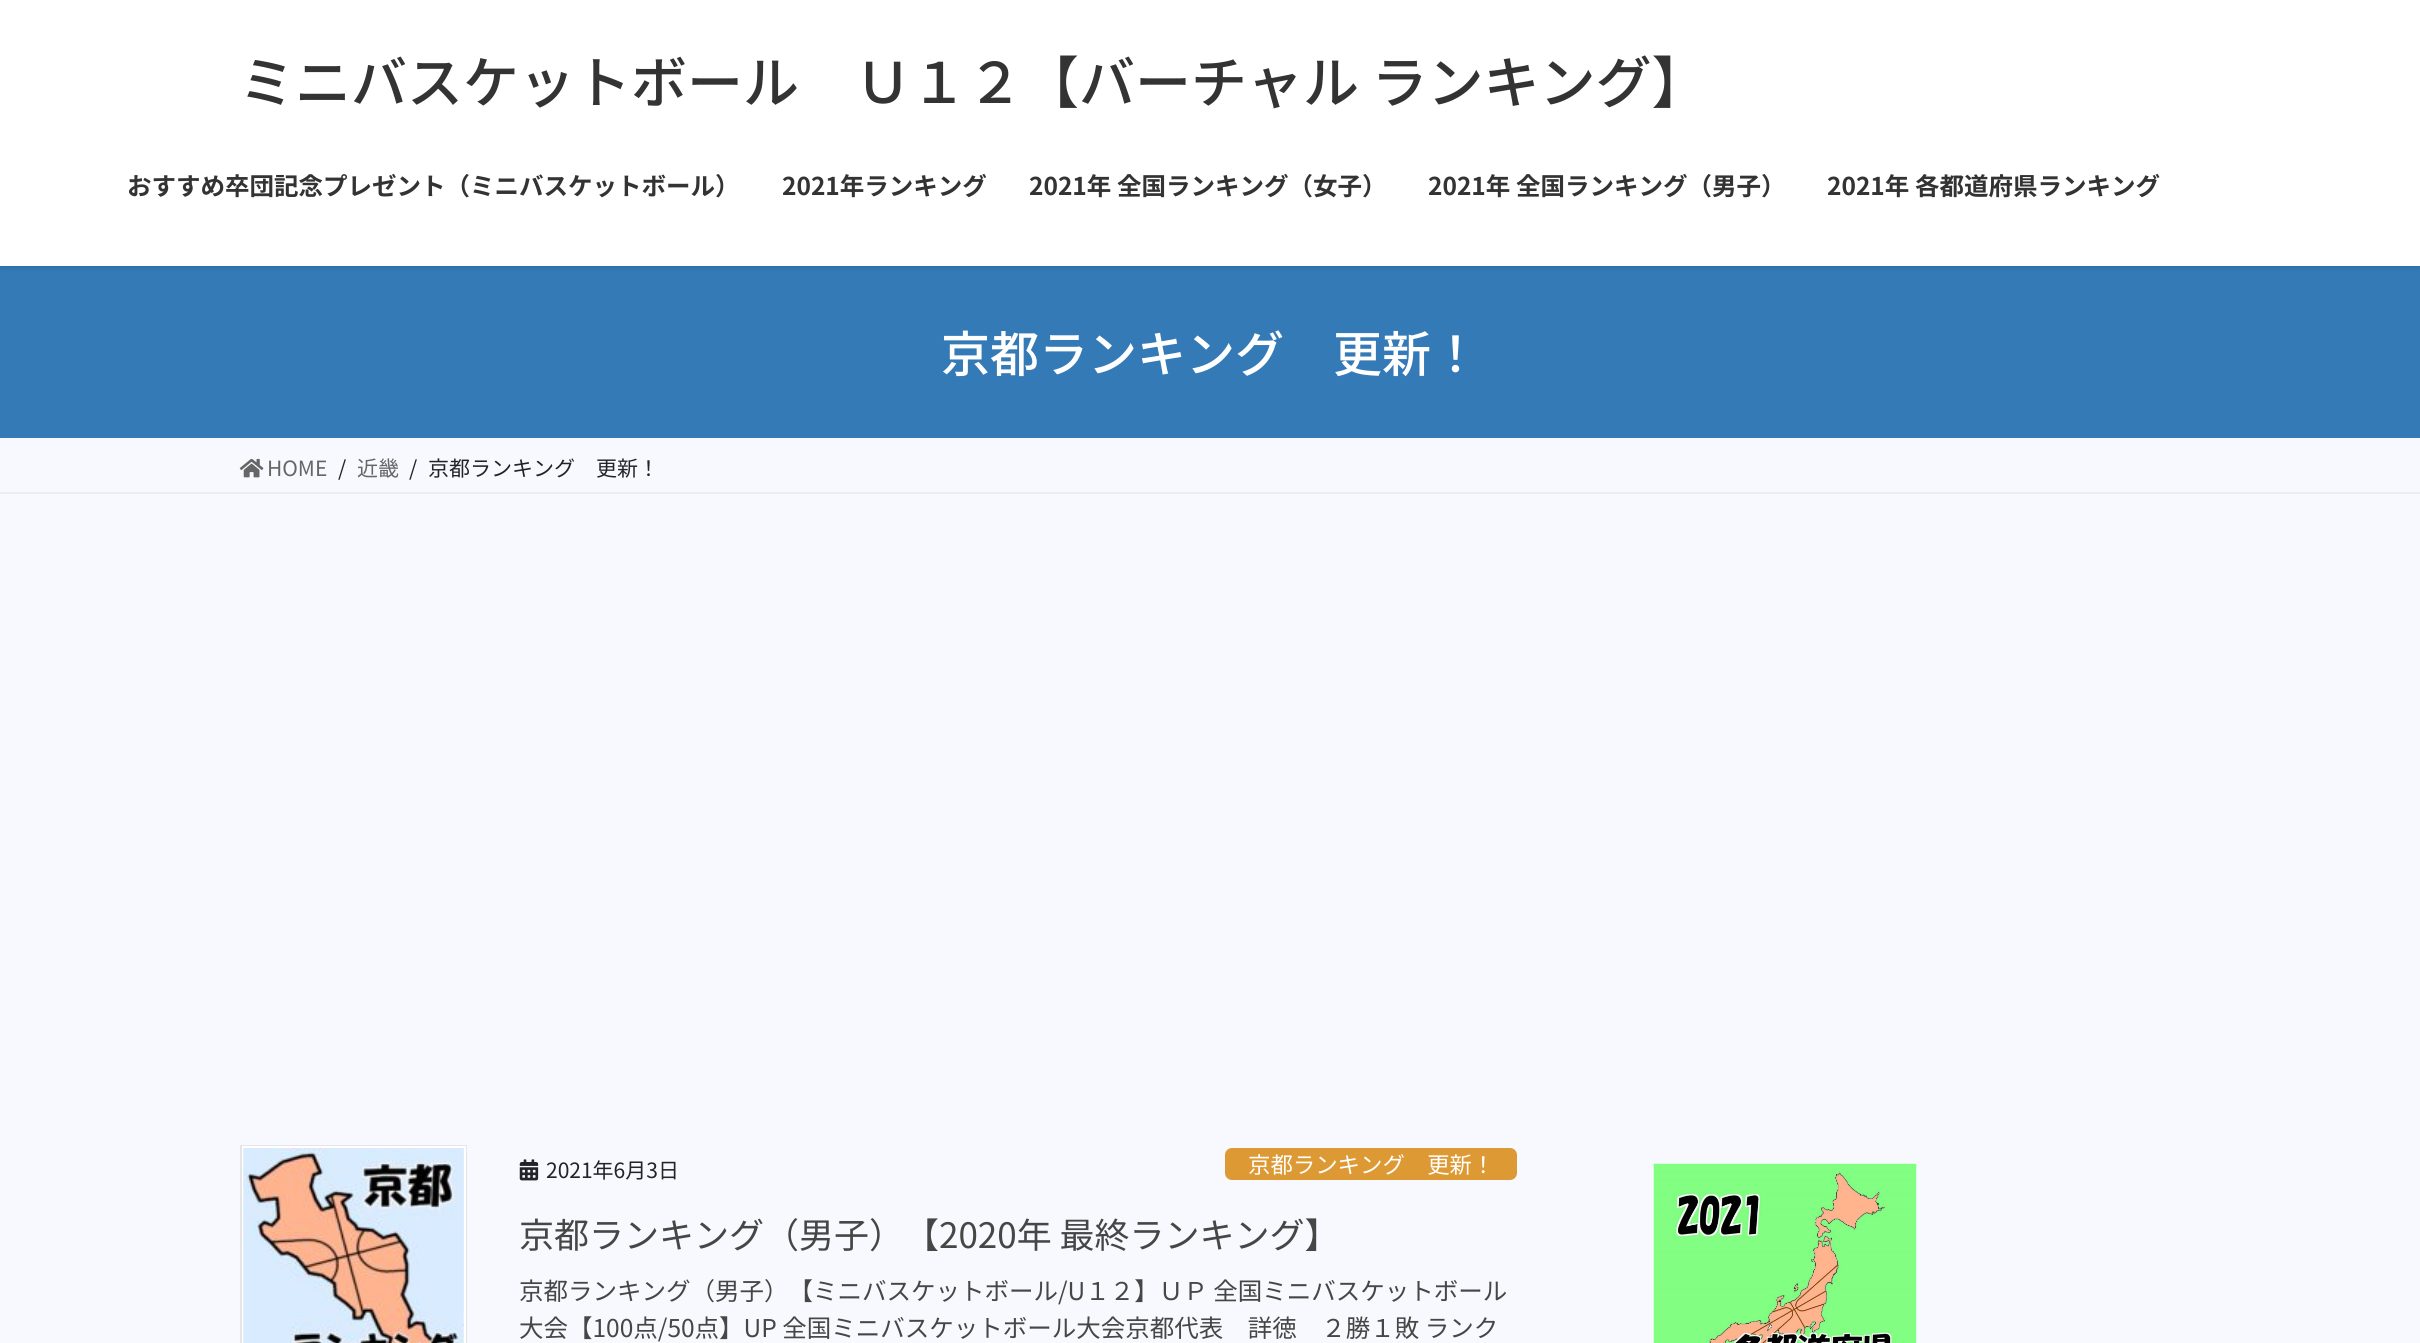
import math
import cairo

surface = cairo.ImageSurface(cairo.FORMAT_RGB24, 2420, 1343)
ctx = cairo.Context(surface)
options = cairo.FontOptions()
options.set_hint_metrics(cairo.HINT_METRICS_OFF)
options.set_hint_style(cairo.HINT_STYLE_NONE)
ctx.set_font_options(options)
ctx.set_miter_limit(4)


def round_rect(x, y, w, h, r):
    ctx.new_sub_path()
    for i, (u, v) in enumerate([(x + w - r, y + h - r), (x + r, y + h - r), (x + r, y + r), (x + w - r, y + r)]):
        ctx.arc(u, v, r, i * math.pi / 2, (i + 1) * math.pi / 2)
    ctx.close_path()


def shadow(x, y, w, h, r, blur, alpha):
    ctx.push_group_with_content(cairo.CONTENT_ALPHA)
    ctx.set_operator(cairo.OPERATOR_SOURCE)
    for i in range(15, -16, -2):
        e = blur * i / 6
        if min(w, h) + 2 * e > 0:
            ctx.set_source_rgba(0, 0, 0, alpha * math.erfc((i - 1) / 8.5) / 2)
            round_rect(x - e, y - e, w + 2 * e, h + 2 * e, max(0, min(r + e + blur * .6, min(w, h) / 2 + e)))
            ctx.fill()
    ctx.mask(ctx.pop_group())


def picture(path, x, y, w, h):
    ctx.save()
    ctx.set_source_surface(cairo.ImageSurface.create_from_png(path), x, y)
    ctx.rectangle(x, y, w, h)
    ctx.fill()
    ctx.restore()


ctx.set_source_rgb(0.969, 0.976, 1)
ctx.paint()
ctx.set_source_rgb(0.2, 0.478, 0.718)
ctx.rectangle(0, 266, 2420, 172)
ctx.fill()
ctx.set_source_rgb(0, 0, 0)
shadow(0, 2, 2420, 266, 0, 2.5, 0.1)
ctx.set_source_rgb(1, 1, 1)
ctx.rectangle(0, 0, 2420, 266)
ctx.fill()
ctx.select_font_face("Noto Sans JP Medium")
ctx.set_font_size(56)
ctx.set_source_rgb(0.2, 0.2, 0.2)
ctx.move_to(239, 103)
ctx.show_text("ミニバスケットボール　Ｕ１２【バーチャル ランキング】")
ctx.select_font_face("Noto Sans JP", cairo.FONT_SLANT_NORMAL, cairo.FONT_WEIGHT_BOLD)
ctx.set_font_size(24.5)
ctx.move_to(127, 195)
ctx.show_text("おすすめ卒団記念プレゼント（ミニバスケットボール）")
ctx.move_to(782, 195)
ctx.show_text("2021年ランキング")
ctx.move_to(1029, 195)
ctx.show_text("2021年 全国ランキング（女子）")
ctx.move_to(1428, 195)
ctx.show_text("2021年 全国ランキング（男子）")
ctx.move_to(1827, 195)
ctx.show_text("2021年 各都道府県ランキング")
ctx.select_font_face("Noto Sans JP Medium")
ctx.set_font_size(49)
ctx.set_source_rgb(1, 1, 1)
ctx.move_to(941, 372)
ctx.show_text("京都ランキング　更新！")
ctx.set_source_rgb(0.922, 0.929, 0.949)
ctx.rectangle(0, 492, 2420, 2)
ctx.fill()
picture("img1.png", 239, 458, 25, 20)
ctx.select_font_face("Noto Sans JP")
ctx.set_font_size(21)
ctx.set_source_rgb(0.4, 0.4, 0.4)
ctx.move_to(267, 476)
ctx.show_text("HOME")
ctx.set_source_rgb(0.129, 0.145, 0.161)
ctx.move_to(338, 476)
ctx.show_text("/")
ctx.set_source_rgb(0.4, 0.4, 0.4)
ctx.move_to(357, 476)
ctx.show_text("近畿")
ctx.set_source_rgb(0.129, 0.145, 0.161)
ctx.move_to(409, 476)
ctx.show_text("/")
ctx.move_to(428, 476)
ctx.show_text("京都ランキング　更新！")
ctx.rectangle(241, 1146, 225, 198)
ctx.set_source_rgb(0.898, 0.898, 0.898)
ctx.stroke()
ctx.rectangle(243, 1147, 222, 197)
ctx.set_source_rgb(1, 1, 1)
ctx.stroke()
picture("img2.png", 243, 1148, 221, 195)
picture("img3.png", 519, 1159, 20, 22)
ctx.set_source_rgb(0.129, 0.145, 0.161)
ctx.move_to(546, 1178)
ctx.show_text("2021年6月3日")
ctx.set_source_rgb(0.867, 0.6, 0.2)
round_rect(1225, 1148, 292, 32, 7)
ctx.fill()
ctx.set_font_size(22.4)
ctx.set_source_rgb(1, 1, 1)
ctx.move_to(1248, 1173)
ctx.show_text("京都ランキング　更新！")
ctx.set_font_size(35)
ctx.set_source_rgb(0.275, 0.275, 0.275)
ctx.move_to(519, 1248)
ctx.show_text("京都ランキング（男子）【2020年 最終ランキング】")
ctx.set_font_size(24.5)
ctx.move_to(519, 1300)
ctx.show_text("京都ランキング（男子）【ミニバスケットボール/U１２】ＵＰ 全国ミニバスケットボール")
ctx.move_to(519, 1337)
ctx.show_text("大会【100点/50点】UP 全国ミニバスケットボール大会京都代表　詳徳　２勝１敗 ランク")
picture("img4.png", 1653, 1163, 264, 180)
surface.write_to_png("page.png")
